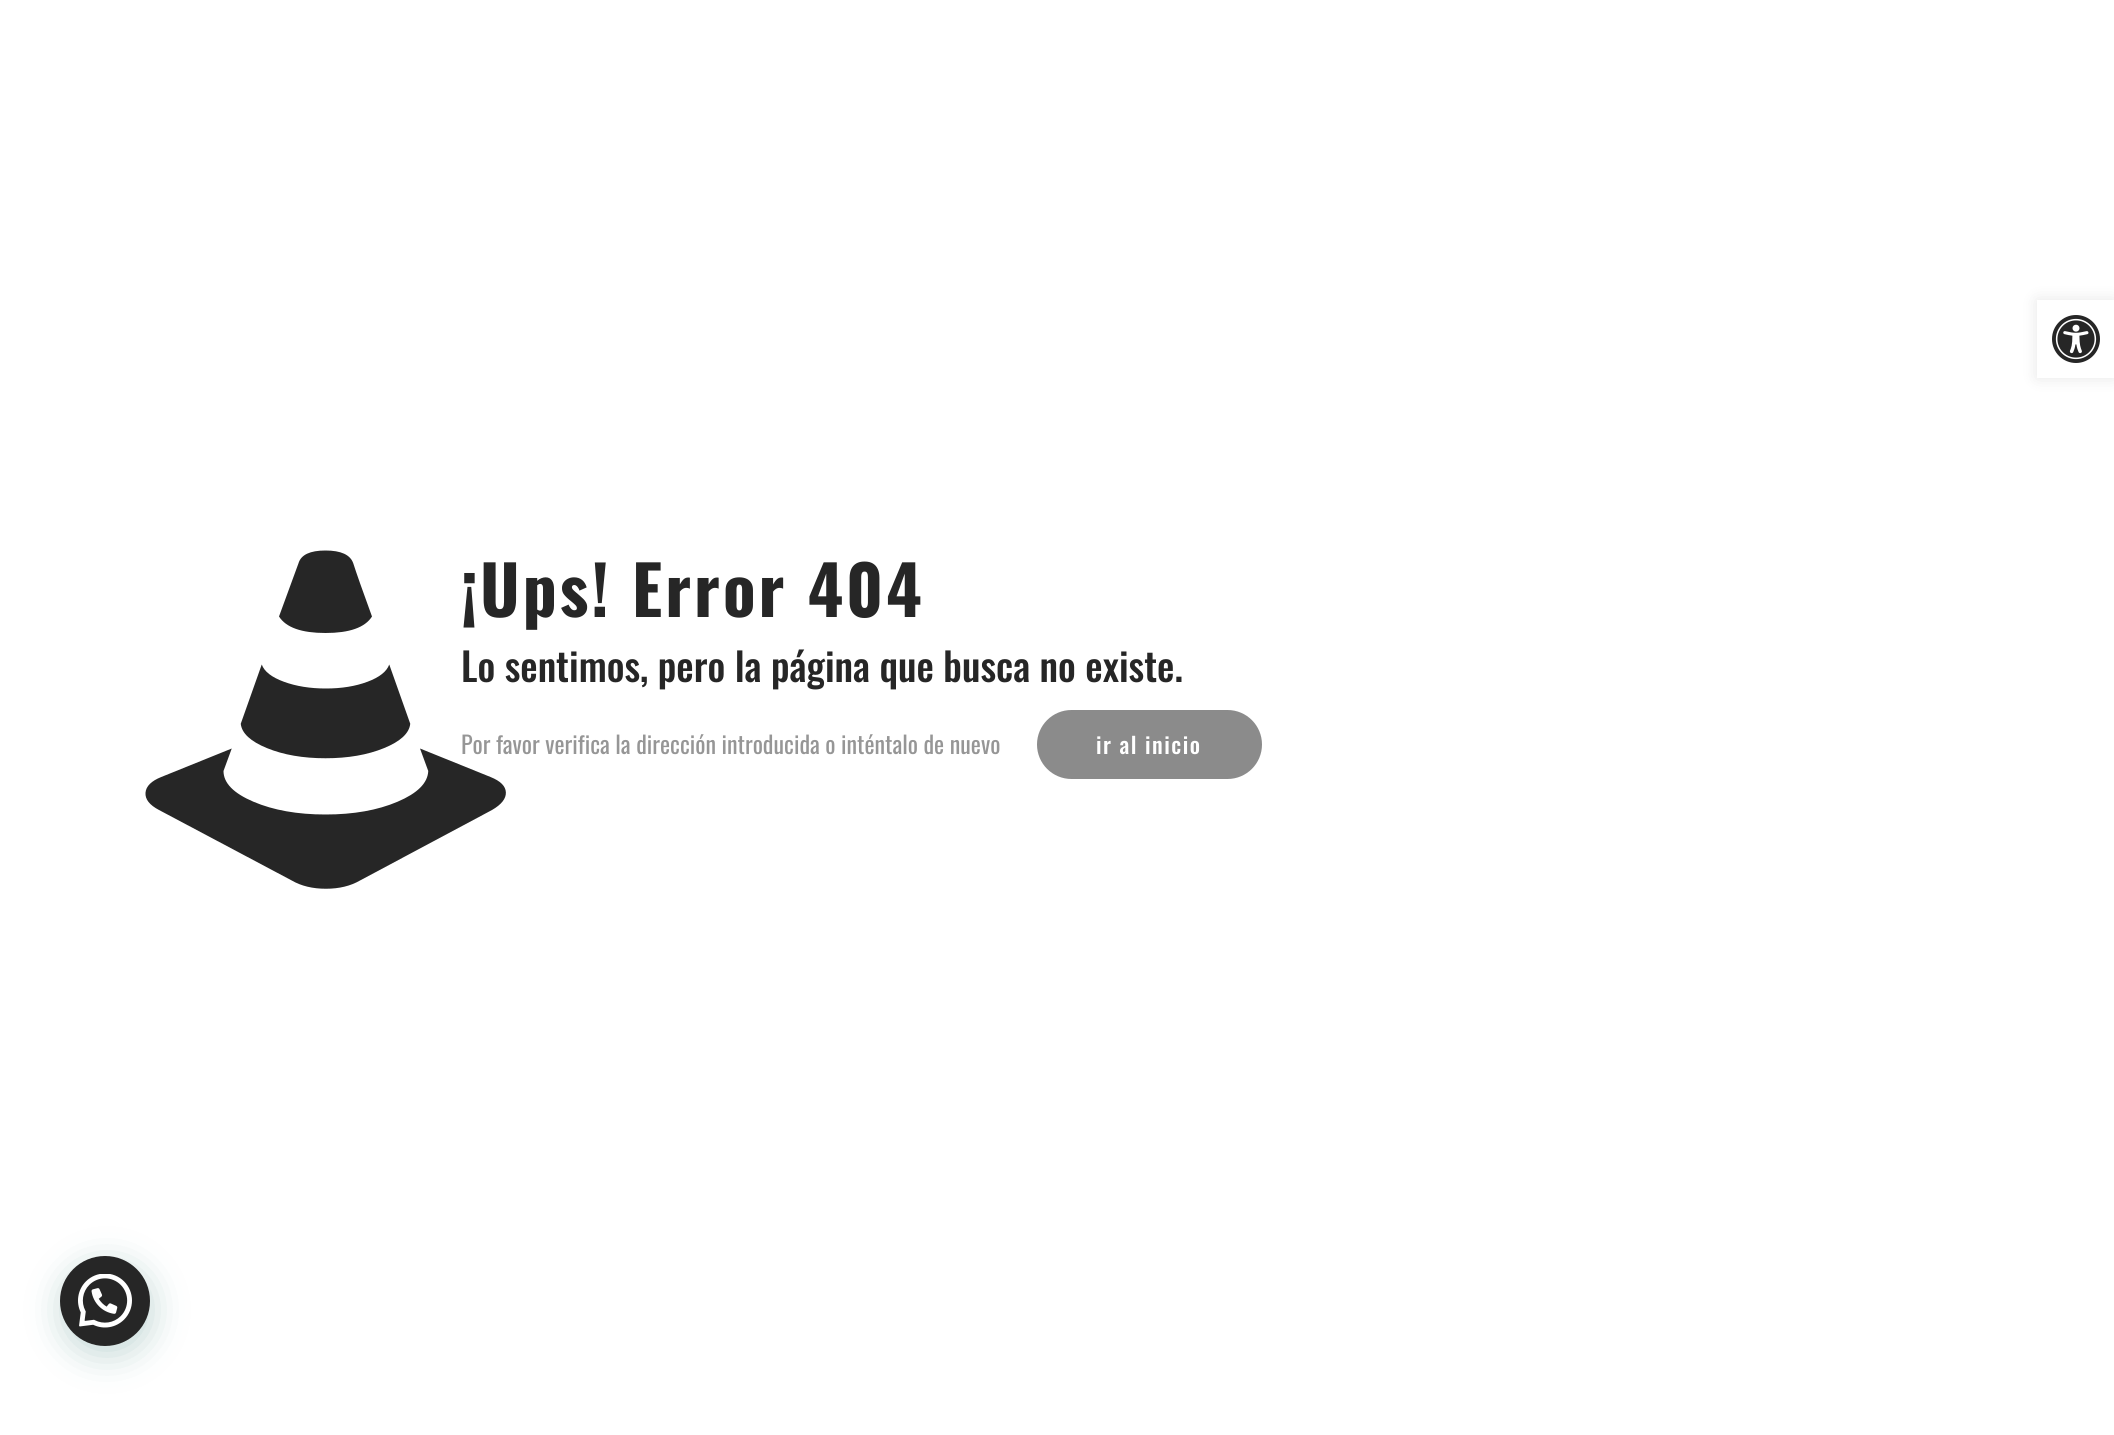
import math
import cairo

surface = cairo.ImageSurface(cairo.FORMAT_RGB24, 2114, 1435)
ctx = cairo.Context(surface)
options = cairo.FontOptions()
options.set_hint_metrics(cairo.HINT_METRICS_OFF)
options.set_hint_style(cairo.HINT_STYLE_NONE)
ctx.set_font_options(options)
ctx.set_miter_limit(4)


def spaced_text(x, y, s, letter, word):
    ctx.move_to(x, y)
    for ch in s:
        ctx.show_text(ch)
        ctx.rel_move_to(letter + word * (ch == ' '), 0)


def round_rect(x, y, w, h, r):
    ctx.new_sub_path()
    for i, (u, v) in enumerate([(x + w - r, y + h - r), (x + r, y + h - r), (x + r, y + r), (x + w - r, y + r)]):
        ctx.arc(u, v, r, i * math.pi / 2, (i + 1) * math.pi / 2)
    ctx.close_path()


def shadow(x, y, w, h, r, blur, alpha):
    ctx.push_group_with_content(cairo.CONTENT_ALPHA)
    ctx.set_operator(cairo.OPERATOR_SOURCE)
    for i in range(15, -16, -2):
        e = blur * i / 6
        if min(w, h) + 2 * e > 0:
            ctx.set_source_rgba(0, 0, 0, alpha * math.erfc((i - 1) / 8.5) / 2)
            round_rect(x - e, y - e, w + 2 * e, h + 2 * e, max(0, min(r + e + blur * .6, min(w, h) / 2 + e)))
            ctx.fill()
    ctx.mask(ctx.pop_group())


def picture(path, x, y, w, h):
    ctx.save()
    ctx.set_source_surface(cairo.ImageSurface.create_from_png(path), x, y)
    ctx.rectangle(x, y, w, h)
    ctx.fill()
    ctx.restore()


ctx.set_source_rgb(1, 1, 1)
ctx.paint()
ctx.save()
ctx.set_fill_rule(cairo.FILL_RULE_EVEN_ODD)
ctx.new_path()
ctx.move_to(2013, 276)
ctx.line_to(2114, 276)
ctx.line_to(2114, 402)
ctx.line_to(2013, 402)
ctx.close_path()
ctx.move_to(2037, 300)
ctx.line_to(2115, 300)
ctx.line_to(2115, 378)
ctx.line_to(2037, 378)
ctx.close_path()
ctx.clip()
ctx.set_source_rgb(0, 0, 0)
shadow(2037, 300, 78, 78, 0, 7.5, 0.1)
ctx.restore()
picture("img1.png", 2052, 315, 48, 48)
picture("img2.png", 145, 550, 361, 339)
ctx.select_font_face("Oswald", cairo.FONT_SLANT_NORMAL, cairo.FONT_WEIGHT_BOLD)
ctx.set_font_size(67.5)
ctx.set_source_rgb(0.149, 0.149, 0.149)
spaced_text(461, 617, "¡Ups! Error 404", 3, 0)
ctx.select_font_face("Oswald Medium")
ctx.set_font_size(39)
ctx.move_to(461, 682)
ctx.show_text("Lo sentimos, pero la página que busca no existe.")
ctx.select_font_face("Oswald")
ctx.set_font_size(24)
ctx.set_source_rgb(0.588, 0.588, 0.588)
ctx.move_to(461, 754)
ctx.show_text("Por favor verifica la dirección introducida o inténtalo de nuevo")
ctx.set_source_rgb(0.545, 0.545, 0.545)
round_rect(1037, 710, 225, 69, 34.5)
ctx.fill()
ctx.select_font_face("Oswald Medium")
ctx.set_font_size(22.5)
ctx.set_source_rgb(1, 1, 1)
spaced_text(1096, 754, "ir al inicio", 1.5, 0)
ctx.set_source_rgb(0.027, 0.369, 0.329)
shadow(62, 1265, 90, 90, 45, 18, 0.24)
ctx.set_source_rgb(0.149, 0.149, 0.149)
ctx.arc(105, 1301, 45, 0, 2 * math.pi)
ctx.fill()
picture("img3.png", 78, 1274, 54, 54)
surface.write_to_png("page.png")
